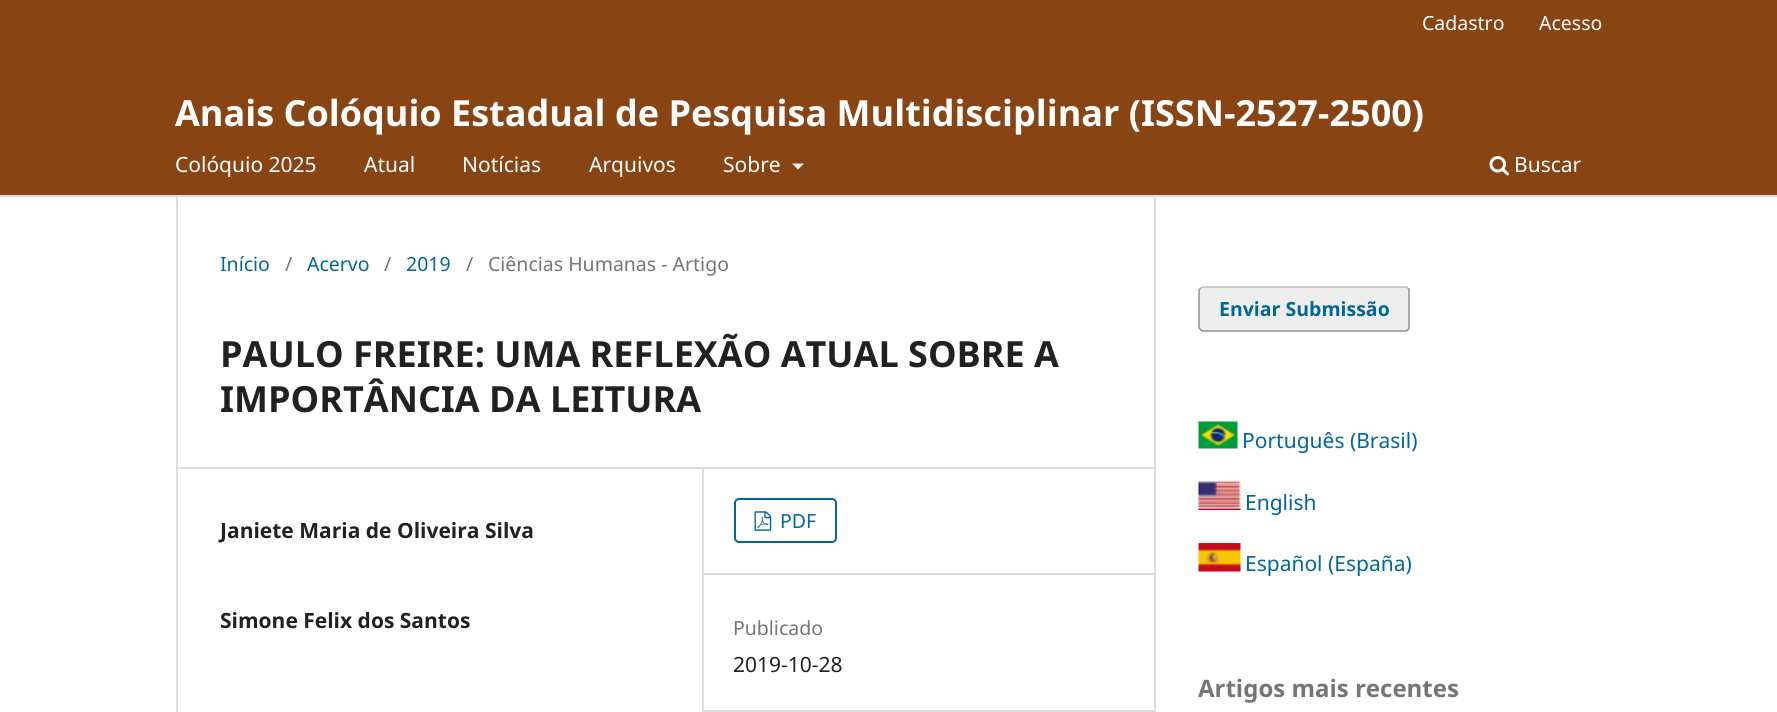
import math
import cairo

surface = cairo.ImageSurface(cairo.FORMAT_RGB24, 1777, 712)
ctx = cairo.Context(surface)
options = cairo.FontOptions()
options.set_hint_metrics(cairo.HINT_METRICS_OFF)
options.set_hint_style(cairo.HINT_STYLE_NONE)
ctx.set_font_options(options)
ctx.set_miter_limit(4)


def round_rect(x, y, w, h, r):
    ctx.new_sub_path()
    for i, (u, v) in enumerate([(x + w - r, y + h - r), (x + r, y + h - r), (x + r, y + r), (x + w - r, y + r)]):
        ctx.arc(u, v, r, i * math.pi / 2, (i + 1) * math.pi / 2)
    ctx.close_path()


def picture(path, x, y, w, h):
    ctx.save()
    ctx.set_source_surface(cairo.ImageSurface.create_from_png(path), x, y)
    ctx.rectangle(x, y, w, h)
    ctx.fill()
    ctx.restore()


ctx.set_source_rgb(1, 1, 1)
ctx.paint()
ctx.set_source_rgb(0.533, 0.267, 0.071)
ctx.rectangle(0, 0, 1777, 195)
ctx.fill()
ctx.set_source_rgb(0.867, 0.867, 0.867)
ctx.rectangle(0, 195, 1777, 2)
ctx.fill()
ctx.select_font_face("Noto Sans")
ctx.set_font_size(19.5)
ctx.set_source_rgb(1, 1, 1)
ctx.move_to(1422, 30)
ctx.show_text("Cadastro")
ctx.move_to(1539, 30)
ctx.show_text("Acesso")
ctx.set_font_size(21)
ctx.move_to(175, 172)
ctx.show_text("Colóquio 2025")
ctx.move_to(364, 172)
ctx.show_text("Atual")
ctx.move_to(462, 172)
ctx.show_text("Notícias")
ctx.move_to(589, 172)
ctx.show_text("Arquivos")
ctx.move_to(723, 172)
ctx.show_text("Sobre")
ctx.new_path()
ctx.move_to(792, 163.5)
ctx.line_to(804, 163.5)
ctx.line_to(798, 169.5)
ctx.close_path()
ctx.fill()
picture("img1.png", 1489, 156, 20, 20)
ctx.move_to(1514, 172)
ctx.show_text("Buscar")
ctx.select_font_face("Noto Sans", cairo.FONT_SLANT_NORMAL, cairo.FONT_WEIGHT_BOLD)
ctx.set_font_size(36)
ctx.move_to(175, 126)
ctx.show_text("Anais Colóquio Estadual de Pesquisa Multidisciplinar (ISSN-2527-2500)")
ctx.set_source_rgb(0.867, 0.867, 0.867)
ctx.rectangle(176, 467, 978, 2)
ctx.fill()
ctx.rectangle(176, 197, 2, 515)
ctx.fill()
ctx.select_font_face("Noto Sans")
ctx.set_font_size(19.5)
ctx.set_source_rgb(0, 0.404, 0.596)
ctx.move_to(220, 271)
ctx.show_text("Início")
ctx.set_source_rgb(0.459, 0.459, 0.459)
ctx.move_to(285, 271)
ctx.show_text("/")
ctx.set_source_rgb(0, 0.404, 0.596)
ctx.move_to(307, 271)
ctx.show_text("Acervo")
ctx.set_source_rgb(0.459, 0.459, 0.459)
ctx.move_to(384, 271)
ctx.show_text("/")
ctx.set_source_rgb(0, 0.404, 0.596)
ctx.move_to(406, 271)
ctx.show_text("2019")
ctx.set_source_rgb(0.459, 0.459, 0.459)
ctx.move_to(466, 271)
ctx.show_text("/")
ctx.move_to(488, 271)
ctx.show_text("Ciências Humanas - Artigo")
ctx.select_font_face("Noto Sans", cairo.FONT_SLANT_NORMAL, cairo.FONT_WEIGHT_BOLD)
ctx.set_font_size(36)
ctx.set_source_rgb(0.129, 0.129, 0.129)
ctx.move_to(220, 367)
ctx.show_text("PAULO FREIRE: UMA REFLEXÃO ATUAL SOBRE A")
ctx.move_to(220, 412)
ctx.show_text("IMPORTÂNCIA DA LEITURA")
ctx.set_source_rgb(0.867, 0.867, 0.867)
ctx.rectangle(702, 468, 2, 244)
ctx.fill()
ctx.set_font_size(21)
ctx.set_source_rgb(0.129, 0.129, 0.129)
ctx.move_to(220, 538)
ctx.show_text("Janiete Maria de Oliveira Silva")
ctx.move_to(220, 628)
ctx.show_text("Simone Felix dos Santos")
ctx.set_source_rgb(0.867, 0.867, 0.867)
ctx.rectangle(704, 573, 450, 2)
ctx.fill()
round_rect(735, 499, 101, 43, 4)
ctx.set_source_rgb(0, 0.404, 0.596)
ctx.stroke()
picture("img2.png", 754, 511, 18, 20)
ctx.select_font_face("Noto Sans")
ctx.set_font_size(19.5)
ctx.move_to(780, 528)
ctx.show_text("PDF")
ctx.set_source_rgb(0.867, 0.867, 0.867)
ctx.rectangle(704, 710, 450, 2)
ctx.fill()
ctx.set_source_rgb(0.459, 0.459, 0.459)
ctx.move_to(733, 635)
ctx.show_text("Publicado")
ctx.set_font_size(21)
ctx.set_source_rgb(0.129, 0.129, 0.129)
ctx.move_to(733, 672)
ctx.show_text("2019-10-28")
ctx.set_source_rgb(0.867, 0.867, 0.867)
ctx.rectangle(1154, 197, 2, 515)
ctx.fill()
ctx.set_source_rgb(0.933, 0.933, 0.933)
round_rect(1199, 287, 211, 45, 5)
ctx.fill()
ctx.new_path()
ctx.move_to(1200.5, 288.5)
ctx.curve_to(1201, 287.5, 1202, 287, 1203, 287)
ctx.line_to(1405.5, 287)
ctx.curve_to(1406.5, 287, 1407.5, 287.5, 1408, 288.5)
ctx.set_source_rgb(0.733, 0.733, 0.733)
ctx.set_line_width(1.5)
ctx.stroke()
ctx.new_path()
ctx.move_to(1408, 288.5)
ctx.curve_to(1409, 289, 1409, 290, 1409, 291)
ctx.line_to(1409, 327)
ctx.curve_to(1409, 328, 1409, 329, 1408, 329.5)
ctx.curve_to(1407.5, 330.5, 1406.5, 331, 1405.5, 331)
ctx.line_to(1203, 331)
ctx.curve_to(1202, 331, 1201, 330.5, 1200.5, 329.5)
ctx.curve_to(1199.5, 329, 1199, 328, 1199, 327)
ctx.line_to(1199, 291)
ctx.curve_to(1199, 290, 1199.5, 289, 1200.5, 288.5)
ctx.set_source_rgba(0, 0, 0, 0.4)
ctx.stroke()
ctx.select_font_face("Noto Sans", cairo.FONT_SLANT_NORMAL, cairo.FONT_WEIGHT_BOLD)
ctx.set_font_size(19.5)
ctx.set_source_rgb(0, 0.404, 0.596)
ctx.move_to(1219, 316)
ctx.show_text("Enviar Submissão")
picture("img3.png", 1198, 421, 40, 28)
ctx.select_font_face("Noto Sans")
ctx.set_font_size(21)
ctx.move_to(1242, 448)
ctx.show_text("Português (Brasil)")
picture("img4.png", 1198, 481, 43, 29)
ctx.move_to(1245, 510)
ctx.show_text("English")
picture("img5.png", 1198, 543, 43, 29)
ctx.move_to(1245, 571)
ctx.show_text("Español (España)")
ctx.select_font_face("Noto Sans", cairo.FONT_SLANT_NORMAL, cairo.FONT_WEIGHT_BOLD)
ctx.set_font_size(24)
ctx.set_source_rgb(0.459, 0.459, 0.459)
ctx.move_to(1198, 697)
ctx.show_text("Artigos mais recentes")
surface.write_to_png("page.png")
